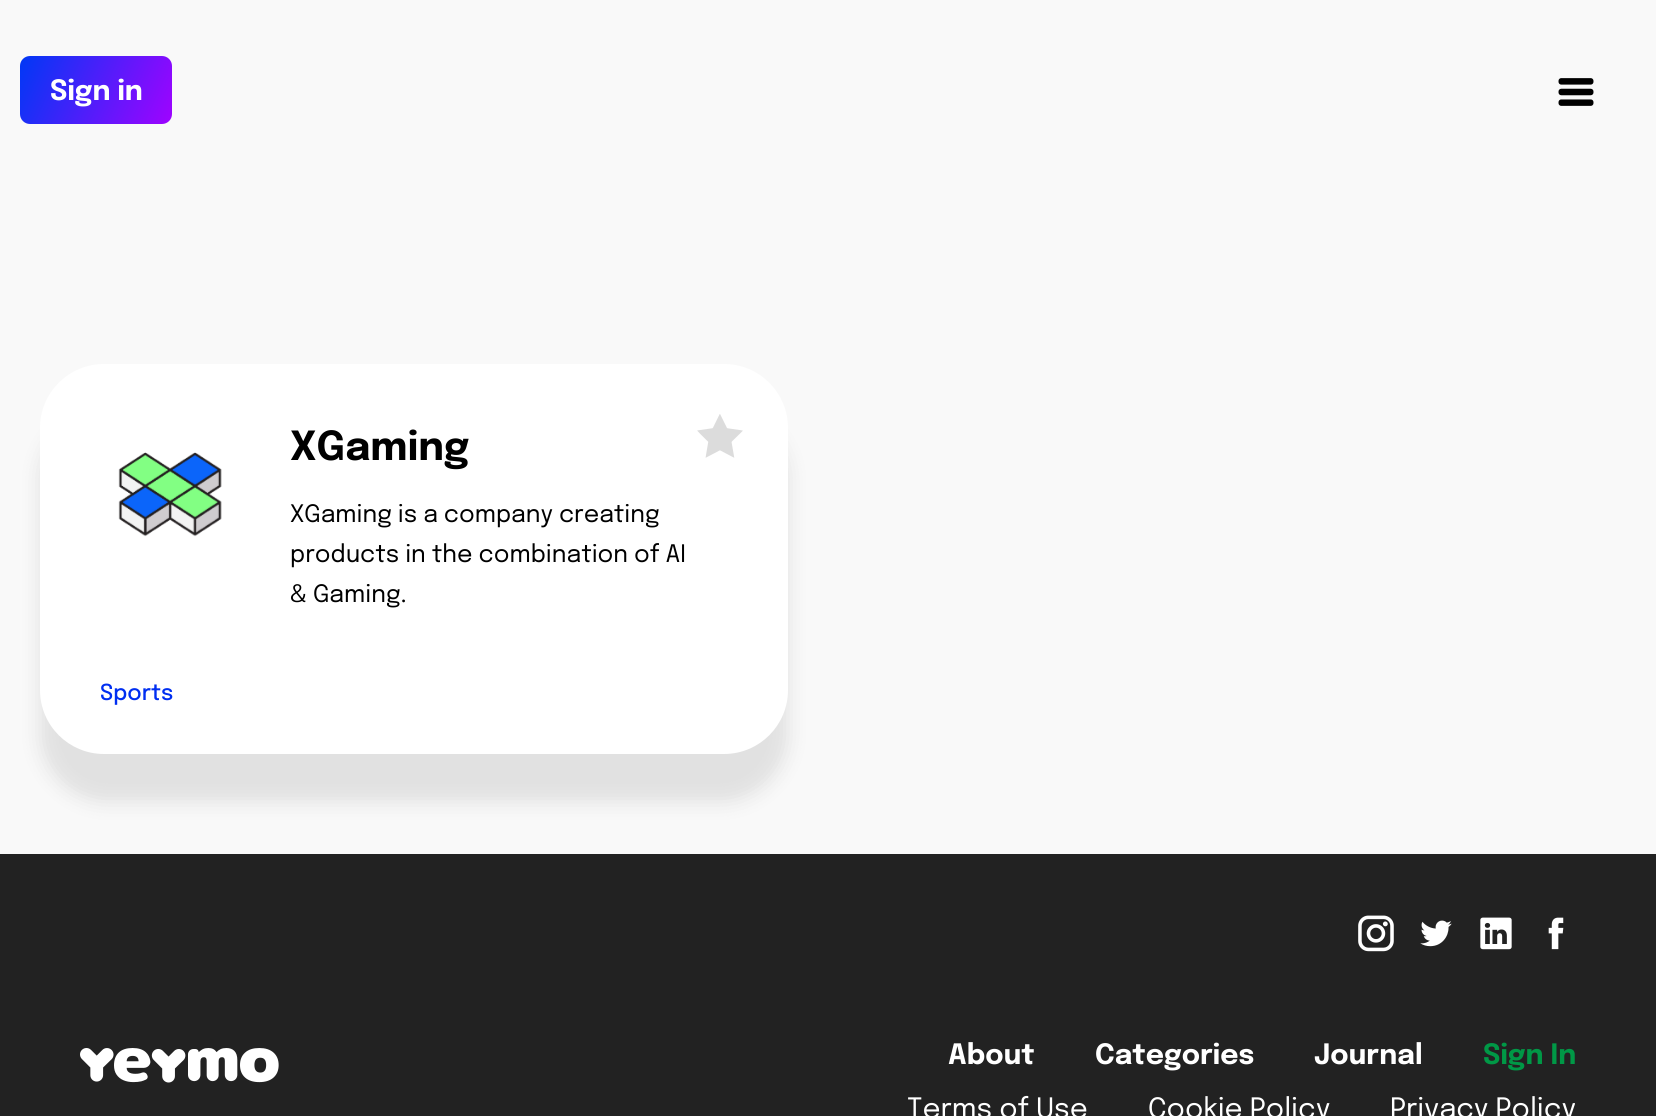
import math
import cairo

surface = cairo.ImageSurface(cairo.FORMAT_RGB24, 1656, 1116)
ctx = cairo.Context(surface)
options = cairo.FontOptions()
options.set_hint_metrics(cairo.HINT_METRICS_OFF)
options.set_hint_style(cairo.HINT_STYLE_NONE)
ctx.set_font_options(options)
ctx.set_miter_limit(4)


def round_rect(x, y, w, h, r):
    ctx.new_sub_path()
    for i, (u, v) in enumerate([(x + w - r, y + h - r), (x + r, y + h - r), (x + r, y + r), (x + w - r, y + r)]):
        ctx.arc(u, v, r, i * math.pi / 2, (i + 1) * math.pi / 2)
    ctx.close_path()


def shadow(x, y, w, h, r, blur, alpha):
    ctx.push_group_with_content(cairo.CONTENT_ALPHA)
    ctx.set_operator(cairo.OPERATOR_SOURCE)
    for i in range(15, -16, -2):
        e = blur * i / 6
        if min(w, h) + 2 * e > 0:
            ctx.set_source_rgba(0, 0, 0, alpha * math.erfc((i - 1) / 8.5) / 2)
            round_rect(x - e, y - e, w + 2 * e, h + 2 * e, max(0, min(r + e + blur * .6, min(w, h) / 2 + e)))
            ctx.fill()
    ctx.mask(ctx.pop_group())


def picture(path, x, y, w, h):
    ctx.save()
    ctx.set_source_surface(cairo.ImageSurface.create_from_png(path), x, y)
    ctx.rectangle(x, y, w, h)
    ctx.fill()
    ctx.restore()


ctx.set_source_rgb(0.973, 0.973, 0.973)
ctx.paint()
gradient = cairo.LinearGradient(20, 56, 172, 124)
gradient.add_color_stop_rgba(0, 0, 0.22, 0.961, 1)
gradient.add_color_stop_rgba(1, 0.624, 0.012, 1, 1)
ctx.set_source(gradient)
round_rect(20, 56, 152, 68, 10)
ctx.fill()
ctx.select_font_face("Epilogue", cairo.FONT_SLANT_NORMAL, cairo.FONT_WEIGHT_BOLD)
ctx.set_font_size(28)
ctx.set_source_rgb(1, 1, 1)
ctx.move_to(50, 100)
ctx.show_text("Sign in")
picture("img1.png", 1558, 78, 36, 28)
ctx.set_source_rgb(0, 0, 0)
shadow(40, 412, 748, 390, 64, 10, 0.1)
ctx.set_source_rgb(1, 1, 1)
round_rect(40, 364, 748, 390, 64)
ctx.fill()
picture("img2.png", 118, 452, 104, 85)
ctx.set_font_size(40)
ctx.set_source_rgb(0, 0, 0)
ctx.move_to(290, 460)
ctx.show_text("XGaming")
ctx.select_font_face("Epilogue")
ctx.set_font_size(24)
ctx.move_to(290, 522)
ctx.show_text("XGaming is a company creating")
ctx.move_to(290, 562)
ctx.show_text("products in the combination of AI")
ctx.move_to(290, 602)
ctx.show_text("& Gaming.")
picture("img3.png", 697, 414, 46, 44)
ctx.select_font_face("Epilogue Medium")
ctx.set_font_size(22)
ctx.set_source_rgb(0, 0.18, 0.945)
ctx.move_to(100, 700)
ctx.show_text("Sports")
ctx.set_source_rgb(0.133, 0.133, 0.133)
ctx.rectangle(0, 854, 1656, 262)
ctx.fill()
picture("img4.png", 1358, 915, 36, 37)
picture("img5.png", 1420, 920, 32, 27)
picture("img6.png", 1480, 917, 32, 33)
picture("img7.png", 1548, 917, 16, 33)
picture("img8.png", 80, 1048, 199, 35)
ctx.select_font_face("Epilogue", cairo.FONT_SLANT_NORMAL, cairo.FONT_WEIGHT_BOLD)
ctx.set_font_size(28)
ctx.set_source_rgb(1, 1, 1)
ctx.move_to(948, 1064)
ctx.show_text("About")
ctx.move_to(1095, 1064)
ctx.show_text("Categories")
ctx.move_to(1314, 1064)
ctx.show_text("Journal")
ctx.set_source_rgb(0, 0.596, 0.275)
ctx.move_to(1483, 1064)
ctx.show_text("Sign In")
ctx.select_font_face("Epilogue")
ctx.set_source_rgb(1, 1, 1)
ctx.move_to(907, 1118)
ctx.show_text("Terms of Use")
ctx.move_to(1148, 1118)
ctx.show_text("Cookie Policy")
ctx.move_to(1390, 1118)
ctx.show_text("Privacy Policy")
surface.write_to_png("page.png")
